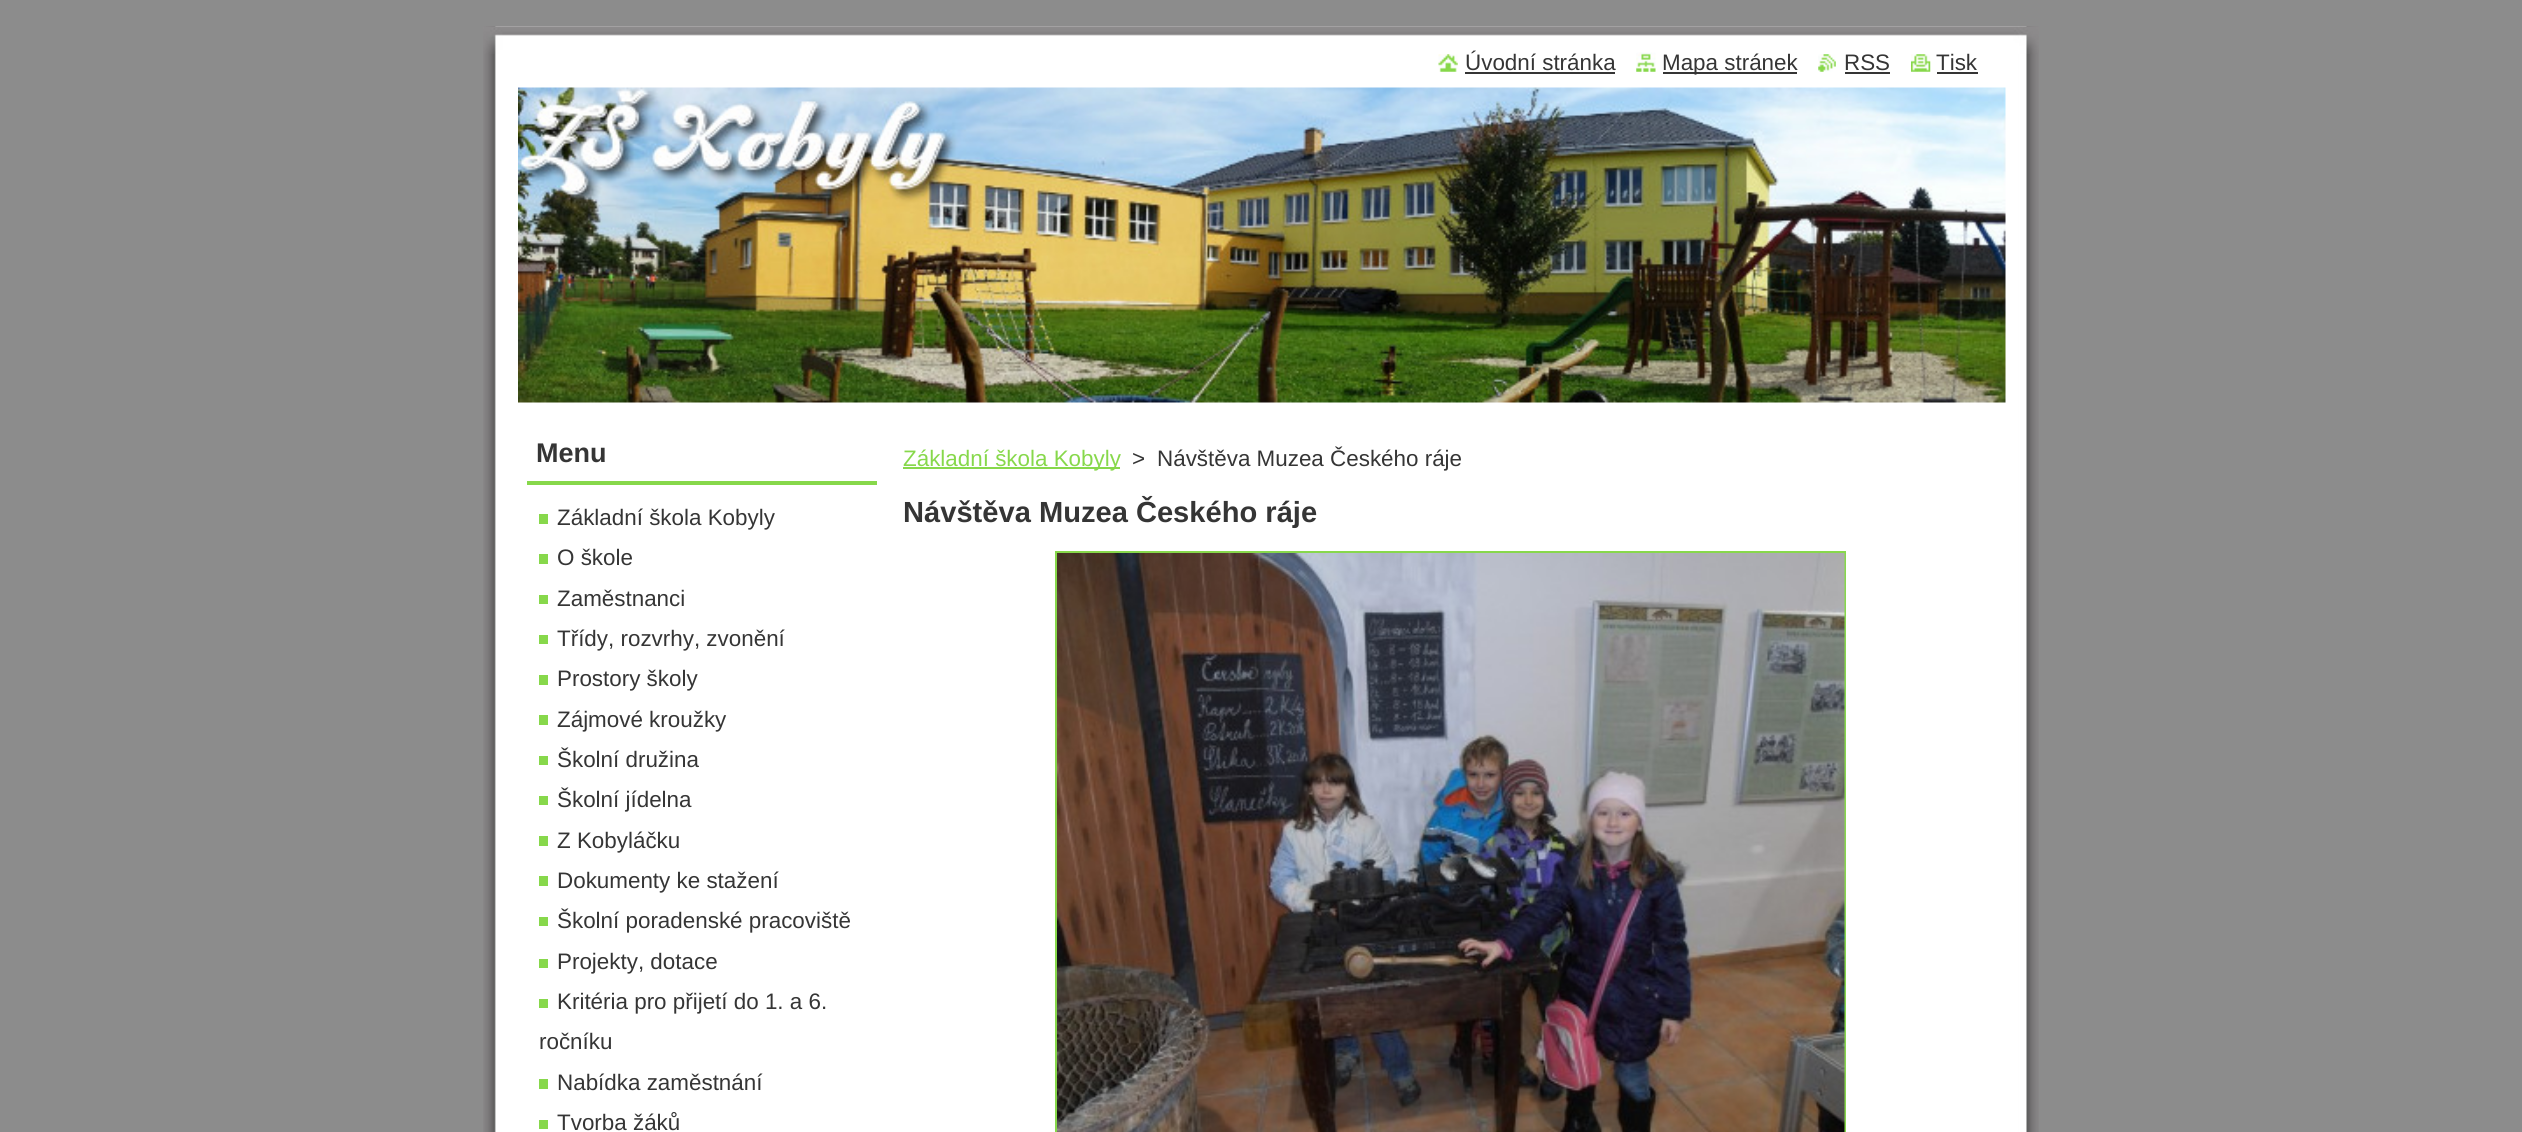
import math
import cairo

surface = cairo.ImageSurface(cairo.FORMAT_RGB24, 2522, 1132)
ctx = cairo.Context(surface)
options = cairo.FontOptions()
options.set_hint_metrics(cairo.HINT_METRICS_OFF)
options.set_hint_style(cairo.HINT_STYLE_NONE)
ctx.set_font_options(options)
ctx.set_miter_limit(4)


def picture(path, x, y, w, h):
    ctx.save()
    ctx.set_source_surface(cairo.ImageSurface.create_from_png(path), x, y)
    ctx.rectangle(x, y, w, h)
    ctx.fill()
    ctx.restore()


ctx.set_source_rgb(0.549, 0.549, 0.549)
ctx.paint()
picture("img1.png", 483, 26, 1556, 1087)
picture("img2.png", 483, 26, 1556, 28)
picture("img3.png", 483, 1113, 1556, 19)
picture("img4.png", 1438, 54, 20, 18)
ctx.select_font_face("Liberation Sans")
ctx.set_font_size(22.4)
ctx.set_source_rgb(0.208, 0.208, 0.208)
ctx.move_to(1465, 70)
ctx.show_text("Úvodní stránka")
ctx.rectangle(1465, 72, 150, 2)
ctx.fill()
picture("img5.png", 1636, 52, 20, 20)
ctx.rectangle(1663, 72, 134, 2)
ctx.fill()
ctx.move_to(1662, 70)
ctx.show_text("Mapa stránek")
picture("img6.png", 1818, 54, 18, 18)
ctx.move_to(1844, 70)
ctx.show_text("RSS")
ctx.rectangle(1845, 72, 45, 2)
ctx.fill()
picture("img7.png", 1911, 54, 20, 18)
ctx.move_to(1936, 70)
ctx.show_text("Tisk")
ctx.rectangle(1937, 72, 41, 2)
ctx.fill()
picture("img8.png", 518, 87, 1488, 316)
ctx.set_source_rgb(0.529, 0.847, 0.294)
ctx.rectangle(527, 481, 350, 4)
ctx.fill()
ctx.select_font_face("Liberation Sans", cairo.FONT_SLANT_NORMAL, cairo.FONT_WEIGHT_BOLD)
ctx.set_font_size(27)
ctx.set_source_rgb(0.208, 0.208, 0.208)
ctx.move_to(536, 462)
ctx.show_text("Menu")
ctx.select_font_face("Liberation Sans")
ctx.set_font_size(22.4)
ctx.move_to(557, 525)
ctx.show_text("Základní škola Kobyly")
ctx.set_source_rgb(0.529, 0.847, 0.294)
ctx.rectangle(539, 514, 9, 10)
ctx.fill()
ctx.set_source_rgb(0.208, 0.208, 0.208)
ctx.move_to(557, 565)
ctx.show_text("O škole")
ctx.set_source_rgb(0.529, 0.847, 0.294)
ctx.rectangle(539, 554, 9, 10)
ctx.fill()
ctx.set_source_rgb(0.208, 0.208, 0.208)
ctx.move_to(557, 606)
ctx.show_text("Zaměstnanci")
ctx.set_source_rgb(0.529, 0.847, 0.294)
ctx.rectangle(539, 595, 9, 9)
ctx.fill()
ctx.set_source_rgb(0.208, 0.208, 0.208)
ctx.move_to(557, 646)
ctx.show_text("Třídy, rozvrhy, zvonění")
ctx.set_source_rgb(0.529, 0.847, 0.294)
ctx.rectangle(539, 635, 9, 9)
ctx.fill()
ctx.set_source_rgb(0.208, 0.208, 0.208)
ctx.move_to(557, 686)
ctx.show_text("Prostory školy")
ctx.set_source_rgb(0.529, 0.847, 0.294)
ctx.rectangle(539, 675, 9, 10)
ctx.fill()
ctx.set_source_rgb(0.208, 0.208, 0.208)
ctx.move_to(557, 727)
ctx.show_text("Zájmové kroužky")
ctx.set_source_rgb(0.529, 0.847, 0.294)
ctx.rectangle(539, 715, 9, 10)
ctx.fill()
ctx.set_source_rgb(0.208, 0.208, 0.208)
ctx.move_to(557, 767)
ctx.show_text("Školní družina")
ctx.set_source_rgb(0.529, 0.847, 0.294)
ctx.rectangle(539, 756, 9, 9)
ctx.fill()
ctx.set_source_rgb(0.208, 0.208, 0.208)
ctx.move_to(557, 807)
ctx.show_text("Školní jídelna")
ctx.set_source_rgb(0.529, 0.847, 0.294)
ctx.rectangle(539, 796, 9, 9)
ctx.fill()
ctx.set_source_rgb(0.208, 0.208, 0.208)
ctx.move_to(557, 848)
ctx.show_text("Z Kobyláčku")
ctx.set_source_rgb(0.529, 0.847, 0.294)
ctx.rectangle(539, 836, 9, 10)
ctx.fill()
ctx.set_source_rgb(0.208, 0.208, 0.208)
ctx.move_to(557, 888)
ctx.show_text("Dokumenty ke stažení")
ctx.set_source_rgb(0.529, 0.847, 0.294)
ctx.rectangle(539, 876, 9, 10)
ctx.fill()
ctx.set_source_rgb(0.208, 0.208, 0.208)
ctx.move_to(557, 928)
ctx.show_text("Školní poradenské pracoviště")
ctx.set_source_rgb(0.529, 0.847, 0.294)
ctx.rectangle(539, 917, 9, 9)
ctx.fill()
ctx.set_source_rgb(0.208, 0.208, 0.208)
ctx.move_to(557, 969)
ctx.show_text("Projekty, dotace")
ctx.set_source_rgb(0.529, 0.847, 0.294)
ctx.rectangle(539, 959, 9, 9)
ctx.fill()
ctx.set_source_rgb(0.208, 0.208, 0.208)
ctx.move_to(557, 1009)
ctx.show_text("Kritéria pro přijetí do 1. a 6.")
ctx.set_source_rgb(0.529, 0.847, 0.294)
ctx.rectangle(539, 999, 9, 9)
ctx.fill()
ctx.set_source_rgb(0.208, 0.208, 0.208)
ctx.move_to(539, 1049)
ctx.show_text("ročníku")
ctx.move_to(557, 1090)
ctx.show_text("Nabídka zaměstnání")
ctx.set_source_rgb(0.529, 0.847, 0.294)
ctx.rectangle(539, 1079, 9, 10)
ctx.fill()
ctx.set_source_rgb(0.208, 0.208, 0.208)
ctx.move_to(557, 1130)
ctx.show_text("Tvorba žáků")
ctx.set_source_rgb(0.529, 0.847, 0.294)
ctx.rectangle(539, 1120, 9, 9)
ctx.fill()
ctx.rectangle(903, 467, 217, 2)
ctx.fill()
ctx.move_to(903, 466)
ctx.show_text("Základní škola Kobyly")
ctx.set_source_rgb(0.208, 0.208, 0.208)
ctx.move_to(1132, 466)
ctx.show_text(">")
ctx.move_to(1157, 466)
ctx.show_text("Návštěva Muzea Českého ráje")
ctx.select_font_face("Liberation Sans", cairo.FONT_SLANT_NORMAL, cairo.FONT_WEIGHT_BOLD)
ctx.set_font_size(29.1)
ctx.move_to(903, 522)
ctx.show_text("Návštěva Muzea Českého ráje")
ctx.rectangle(1056, 552, 789, 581)
ctx.set_source_rgb(0.529, 0.847, 0.294)
ctx.stroke()
picture("img9.png", 1057, 553, 788, 579)
surface.write_to_png("page.png")
